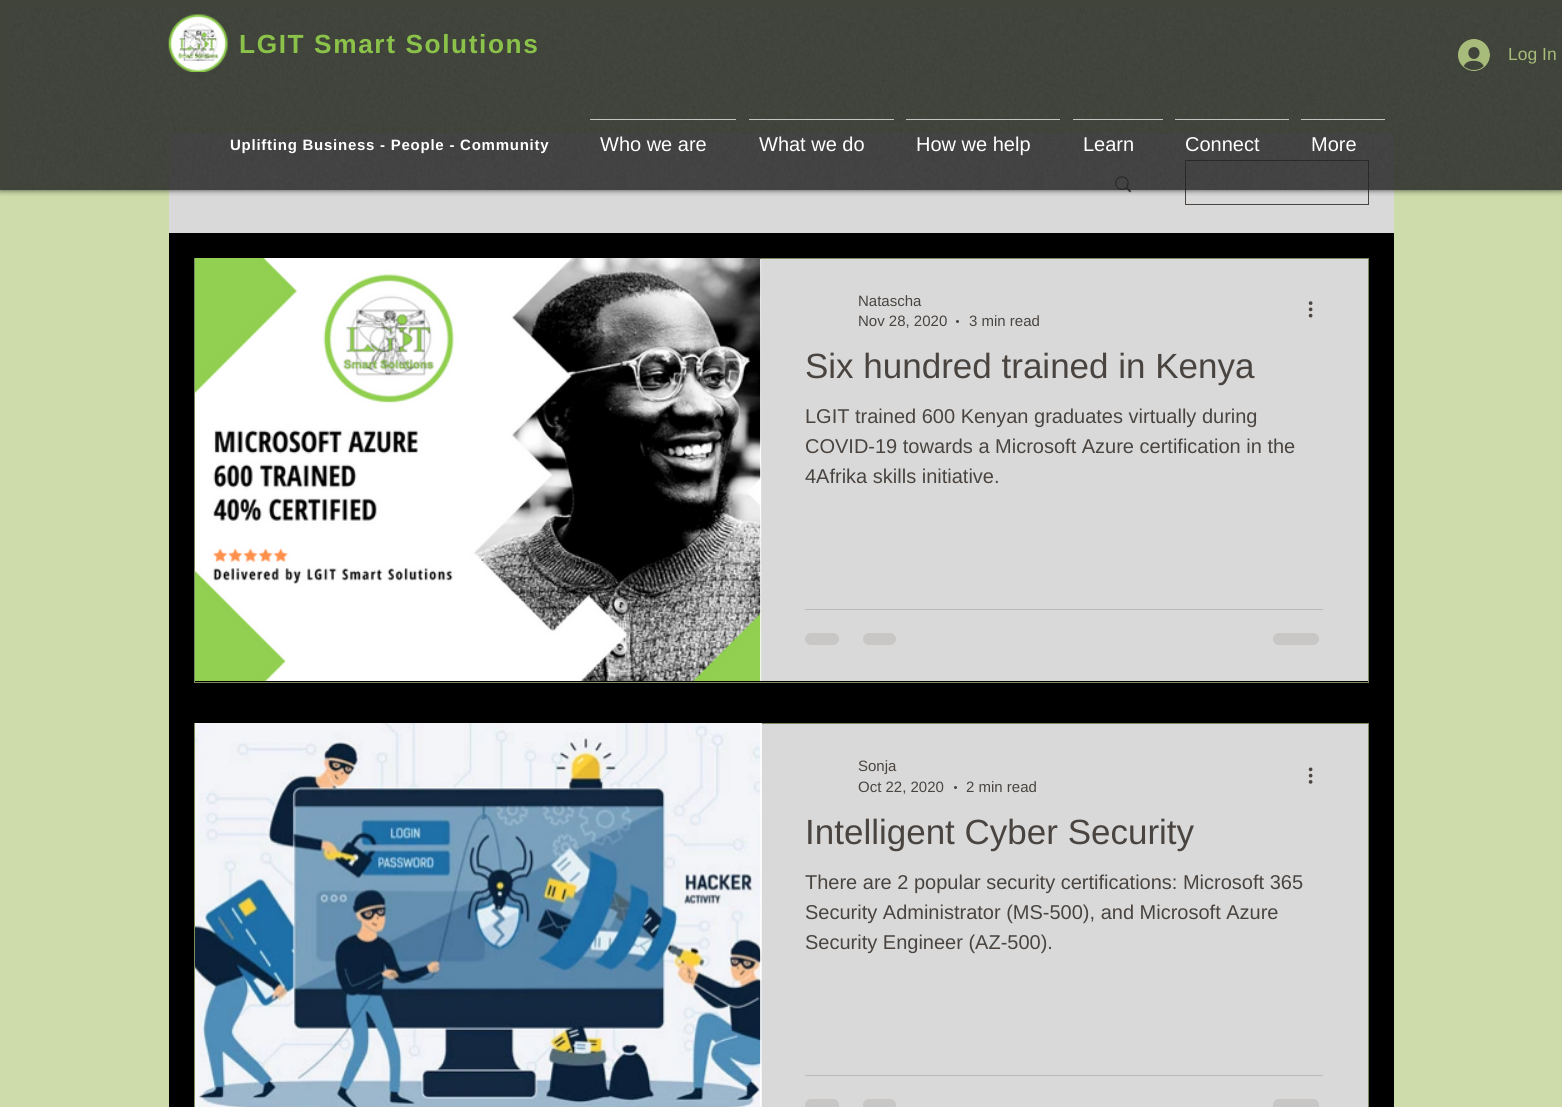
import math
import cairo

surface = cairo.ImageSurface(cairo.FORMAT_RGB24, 1562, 1107)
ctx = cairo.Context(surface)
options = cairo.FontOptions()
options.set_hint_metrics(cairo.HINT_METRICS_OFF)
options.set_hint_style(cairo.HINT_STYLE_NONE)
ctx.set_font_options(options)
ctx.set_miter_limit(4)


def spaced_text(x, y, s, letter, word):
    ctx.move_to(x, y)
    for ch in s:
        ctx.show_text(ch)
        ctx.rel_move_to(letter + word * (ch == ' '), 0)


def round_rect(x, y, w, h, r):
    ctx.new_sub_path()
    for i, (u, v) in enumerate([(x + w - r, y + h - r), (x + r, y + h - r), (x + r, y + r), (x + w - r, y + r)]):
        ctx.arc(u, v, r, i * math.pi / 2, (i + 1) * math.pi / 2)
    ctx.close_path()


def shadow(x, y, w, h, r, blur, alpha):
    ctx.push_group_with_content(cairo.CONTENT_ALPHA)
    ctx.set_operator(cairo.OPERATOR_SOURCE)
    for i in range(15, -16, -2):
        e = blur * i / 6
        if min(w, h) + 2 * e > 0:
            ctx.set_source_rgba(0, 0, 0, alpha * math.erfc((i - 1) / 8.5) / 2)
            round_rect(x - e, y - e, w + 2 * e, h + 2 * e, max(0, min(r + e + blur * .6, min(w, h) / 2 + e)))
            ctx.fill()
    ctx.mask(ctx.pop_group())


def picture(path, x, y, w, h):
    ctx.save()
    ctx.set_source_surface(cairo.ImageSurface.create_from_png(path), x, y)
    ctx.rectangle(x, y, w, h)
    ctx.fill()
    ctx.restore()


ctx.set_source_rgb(0.804, 0.863, 0.667)
ctx.paint()
ctx.set_source_rgb(0.851, 0.851, 0.851)
ctx.rectangle(169, 133, 1225, 100)
ctx.fill()
picture("img4.png", 1115, 176, 17, 17)
ctx.rectangle(1185.5, 160.5, 183, 44)
ctx.set_source_rgb(0.286, 0.267, 0.251)
ctx.set_line_width(1)
ctx.stroke()
ctx.save()
ctx.rectangle(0, 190, 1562, 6)
ctx.clip()
ctx.set_source_rgb(0, 0, 0)
shadow(0, 0, 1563, 190, 0, 3, 0.7)
ctx.restore()
ctx.set_source_rgba(0.137, 0.137, 0.137, 0.82)
ctx.rectangle(0, 0, 1562, 190)
ctx.fill()
picture("img1.png", 10, 8, 1552, 182)
picture("img2.png", 168, 14, 60, 58)
ctx.select_font_face("Liberation Sans", cairo.FONT_SLANT_NORMAL, cairo.FONT_WEIGHT_BOLD)
ctx.set_font_size(26.25)
ctx.set_source_rgb(0.545, 0.765, 0.29)
spaced_text(239, 53, "LGIT Smart Solutions", 1.6, 0)
picture("img3.png", 1458, 39, 32, 32)
ctx.select_font_face("Liberation Sans")
ctx.set_font_size(17.5)
ctx.set_source_rgb(0.655, 0.733, 0.478)
ctx.move_to(1508, 60)
ctx.show_text("Log In")
ctx.select_font_face("Liberation Sans", cairo.FONT_SLANT_NORMAL, cairo.FONT_WEIGHT_BOLD)
ctx.set_font_size(15)
ctx.set_source_rgb(1, 1, 1)
spaced_text(230, 150, "Uplifting Business - People - Community", 0.75, 0)
ctx.set_source_rgba(1, 1, 1, 0.69)
ctx.rectangle(590, 119, 146, 1)
ctx.fill()
ctx.select_font_face("Liberation Sans")
ctx.set_font_size(20)
ctx.set_source_rgb(1, 1, 1)
ctx.move_to(600, 151)
ctx.show_text("Who we are")
ctx.set_source_rgba(1, 1, 1, 0.69)
ctx.rectangle(749, 119, 145, 1)
ctx.fill()
ctx.set_source_rgb(1, 1, 1)
ctx.move_to(759, 151)
ctx.show_text("What we do")
ctx.set_source_rgba(1, 1, 1, 0.69)
ctx.rectangle(906, 119, 154, 1)
ctx.fill()
ctx.set_source_rgb(1, 1, 1)
ctx.move_to(916, 151)
ctx.show_text("How we help")
ctx.set_source_rgba(1, 1, 1, 0.69)
ctx.rectangle(1073, 119, 90, 1)
ctx.fill()
ctx.set_source_rgb(1, 1, 1)
ctx.move_to(1083, 151)
ctx.show_text("Learn")
ctx.set_source_rgba(1, 1, 1, 0.69)
ctx.rectangle(1175, 119, 114, 1)
ctx.fill()
ctx.set_source_rgb(1, 1, 1)
ctx.move_to(1185, 151)
ctx.show_text("Connect")
ctx.set_source_rgba(1, 1, 1, 0.69)
ctx.rectangle(1301, 119, 84, 1)
ctx.fill()
ctx.set_source_rgb(1, 1, 1)
ctx.move_to(1311, 151)
ctx.show_text("More")
ctx.set_source_rgb(0, 0, 0)
ctx.rectangle(169, 233, 1225, 874)
ctx.fill()
ctx.rectangle(194.5, 258.5, 1174, 424)
ctx.set_source_rgb(0.49, 0.549, 0.361)
ctx.stroke()
picture("img5.png", 195, 258, 566, 423)
picture("img6.png", 761, 258, 1, 423)
ctx.set_source_rgba(1, 1, 1, 0.85)
ctx.rectangle(760, 259, 608, 422)
ctx.fill()
ctx.set_font_size(15)
ctx.set_source_rgb(0.286, 0.267, 0.251)
ctx.move_to(858, 306)
ctx.show_text("Natascha")
ctx.move_to(858, 326)
ctx.show_text("Nov 28, 2020")
ctx.new_path()
ctx.arc(957.5, 321.5, 1.5, 0, 2 * math.pi)
ctx.fill()
ctx.move_to(969, 326)
ctx.show_text("3 min read")
picture("img7.png", 1308, 301, 5, 17)
ctx.set_font_size(35)
ctx.move_to(805, 378)
ctx.show_text("Six hundred trained in Kenya")
ctx.set_font_size(20)
ctx.move_to(805, 423)
ctx.show_text("LGIT trained 600 Kenyan graduates virtually during")
ctx.move_to(805, 453)
ctx.show_text("COVID-19 towards a Microsoft Azure certification in the")
ctx.move_to(805, 483)
ctx.show_text("4Afrika skills initiative.")
ctx.set_source_rgb(0.737, 0.733, 0.729)
ctx.rectangle(805, 609, 518, 1)
ctx.fill()
ctx.set_source_rgb(0.784, 0.78, 0.776)
round_rect(805, 633, 34, 12, 6)
ctx.fill()
round_rect(863, 633, 33, 12, 6)
ctx.fill()
round_rect(1273, 633, 46, 12, 6)
ctx.fill()
ctx.rectangle(194.5, 723.5, 1174, 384)
ctx.set_source_rgb(0.49, 0.549, 0.361)
ctx.stroke()
picture("img9.png", 761, 723, 1, 384)
picture("img8.png", 195, 723, 567, 384)
ctx.set_source_rgba(1, 1, 1, 0.85)
ctx.rectangle(760, 724, 608, 383)
ctx.fill()
ctx.set_font_size(15)
ctx.set_source_rgb(0.286, 0.267, 0.251)
ctx.move_to(858, 771)
ctx.show_text("Sonja")
ctx.move_to(858, 792)
ctx.show_text("Oct 22, 2020")
ctx.new_path()
ctx.arc(955.5, 787.5, 1.5, 0, 2 * math.pi)
ctx.fill()
ctx.move_to(966, 792)
ctx.show_text("2 min read")
picture("img10.png", 1308, 767, 5, 17)
ctx.set_font_size(35)
ctx.move_to(805, 844)
ctx.show_text("Intelligent Cyber Security")
ctx.set_font_size(20)
ctx.move_to(805, 889)
ctx.show_text("There are 2 popular security certifications: Microsoft 365")
ctx.move_to(805, 919)
ctx.show_text("Security Administrator (MS-500), and Microsoft Azure")
ctx.move_to(805, 949)
ctx.show_text("Security Engineer (AZ-500).")
ctx.set_source_rgb(0.737, 0.733, 0.729)
ctx.rectangle(805, 1075, 518, 1)
ctx.fill()
ctx.set_source_rgb(0.784, 0.78, 0.776)
round_rect(805, 1099, 34, 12, 6)
ctx.fill()
round_rect(863, 1099, 33, 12, 6)
ctx.fill()
round_rect(1273, 1099, 46, 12, 6)
ctx.fill()
surface.write_to_png("page.png")
